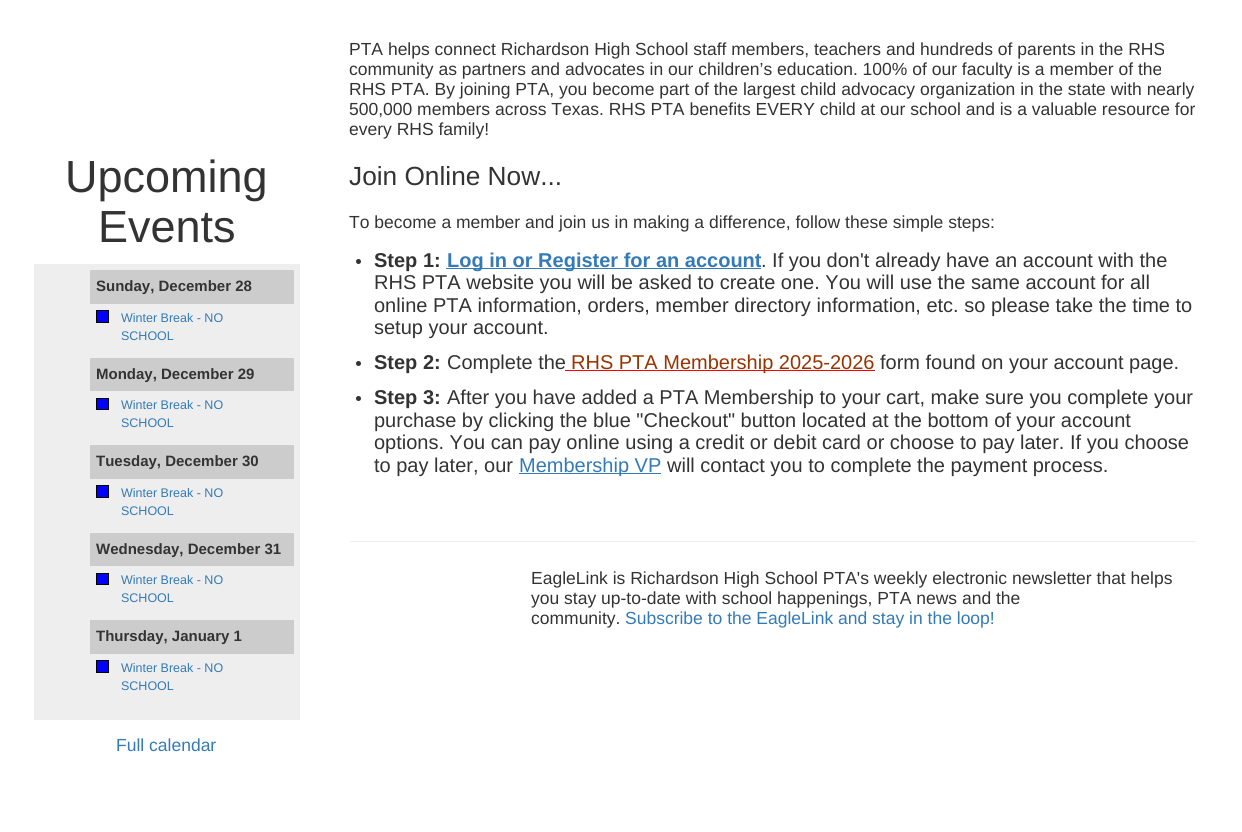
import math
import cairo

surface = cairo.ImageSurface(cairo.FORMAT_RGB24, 1242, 832)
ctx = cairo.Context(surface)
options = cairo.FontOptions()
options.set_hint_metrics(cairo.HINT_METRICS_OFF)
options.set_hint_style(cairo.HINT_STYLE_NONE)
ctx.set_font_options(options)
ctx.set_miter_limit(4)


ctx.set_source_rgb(1, 1, 1)
ctx.paint()
ctx.select_font_face("Liberation Sans")
ctx.set_font_size(45)
ctx.set_source_rgb(0.2, 0.2, 0.2)
ctx.move_to(65, 192)
ctx.show_text("Upcoming")
ctx.move_to(98, 242)
ctx.show_text("Events")
ctx.set_source_rgb(0.933, 0.933, 0.933)
ctx.rectangle(34, 264, 266, 456)
ctx.fill()
ctx.set_source_rgb(0.8, 0.8, 0.8)
ctx.rectangle(90, 270, 204, 34)
ctx.fill()
ctx.select_font_face("Liberation Sans", cairo.FONT_SLANT_NORMAL, cairo.FONT_WEIGHT_BOLD)
ctx.set_font_size(15)
ctx.set_source_rgb(0.2, 0.2, 0.2)
ctx.move_to(96, 291)
ctx.show_text("Sunday, December 28")
ctx.set_source_rgb(0, 0, 1)
ctx.rectangle(96.5, 310.5, 12, 12)
ctx.fill_preserve()
ctx.set_source_rgb(0, 0, 0)
ctx.set_line_width(1)
ctx.stroke()
ctx.select_font_face("Liberation Sans")
ctx.set_font_size(12.5)
ctx.set_source_rgb(0.2, 0.478, 0.718)
ctx.move_to(121, 322)
ctx.show_text("Winter Break - NO")
ctx.move_to(121, 340)
ctx.show_text("SCHOOL")
ctx.set_source_rgb(0.8, 0.8, 0.8)
ctx.rectangle(90, 358, 204, 33)
ctx.fill()
ctx.select_font_face("Liberation Sans", cairo.FONT_SLANT_NORMAL, cairo.FONT_WEIGHT_BOLD)
ctx.set_font_size(15)
ctx.set_source_rgb(0.2, 0.2, 0.2)
ctx.move_to(96, 379)
ctx.show_text("Monday, December 29")
ctx.set_source_rgb(0, 0, 1)
ctx.rectangle(96.5, 398.5, 12, 11)
ctx.fill_preserve()
ctx.set_source_rgb(0, 0, 0)
ctx.stroke()
ctx.select_font_face("Liberation Sans")
ctx.set_font_size(12.5)
ctx.set_source_rgb(0.2, 0.478, 0.718)
ctx.move_to(121, 409)
ctx.show_text("Winter Break - NO")
ctx.move_to(121, 427)
ctx.show_text("SCHOOL")
ctx.set_source_rgb(0.8, 0.8, 0.8)
ctx.rectangle(90, 445, 204, 34)
ctx.fill()
ctx.select_font_face("Liberation Sans", cairo.FONT_SLANT_NORMAL, cairo.FONT_WEIGHT_BOLD)
ctx.set_font_size(15)
ctx.set_source_rgb(0.2, 0.2, 0.2)
ctx.move_to(96, 466)
ctx.show_text("Tuesday, December 30")
ctx.set_source_rgb(0, 0, 1)
ctx.rectangle(96.5, 485.5, 12, 12)
ctx.fill_preserve()
ctx.set_source_rgb(0, 0, 0)
ctx.stroke()
ctx.select_font_face("Liberation Sans")
ctx.set_font_size(12.5)
ctx.set_source_rgb(0.2, 0.478, 0.718)
ctx.move_to(121, 497)
ctx.show_text("Winter Break - NO")
ctx.move_to(121, 515)
ctx.show_text("SCHOOL")
ctx.set_source_rgb(0.8, 0.8, 0.8)
ctx.rectangle(90, 533, 204, 33)
ctx.fill()
ctx.select_font_face("Liberation Sans", cairo.FONT_SLANT_NORMAL, cairo.FONT_WEIGHT_BOLD)
ctx.set_font_size(15)
ctx.set_source_rgb(0.2, 0.2, 0.2)
ctx.move_to(96, 554)
ctx.show_text("Wednesday, December 31")
ctx.set_source_rgb(0, 0, 1)
ctx.rectangle(96.5, 573.5, 12, 11)
ctx.fill_preserve()
ctx.set_source_rgb(0, 0, 0)
ctx.stroke()
ctx.select_font_face("Liberation Sans")
ctx.set_font_size(12.5)
ctx.set_source_rgb(0.2, 0.478, 0.718)
ctx.move_to(121, 584)
ctx.show_text("Winter Break - NO")
ctx.move_to(121, 602)
ctx.show_text("SCHOOL")
ctx.set_source_rgb(0.8, 0.8, 0.8)
ctx.rectangle(90, 620, 204, 34)
ctx.fill()
ctx.select_font_face("Liberation Sans", cairo.FONT_SLANT_NORMAL, cairo.FONT_WEIGHT_BOLD)
ctx.set_font_size(15)
ctx.set_source_rgb(0.2, 0.2, 0.2)
ctx.move_to(96, 641)
ctx.show_text("Thursday, January 1")
ctx.set_source_rgb(0, 0, 1)
ctx.rectangle(96.5, 660.5, 12, 12)
ctx.fill_preserve()
ctx.set_source_rgb(0, 0, 0)
ctx.stroke()
ctx.select_font_face("Liberation Sans")
ctx.set_font_size(12.5)
ctx.set_source_rgb(0.2, 0.478, 0.718)
ctx.move_to(121, 672)
ctx.show_text("Winter Break - NO")
ctx.move_to(121, 690)
ctx.show_text("SCHOOL")
ctx.set_font_size(17.5)
ctx.move_to(116, 751)
ctx.show_text("Full calendar")
ctx.set_source_rgb(0.2, 0.2, 0.2)
ctx.move_to(349, 55)
ctx.show_text("PTA helps connect Richardson High School staff members, teachers and hundreds of parents in the RHS")
ctx.move_to(349, 75)
ctx.show_text("community as partners and advocates in our children’s education. 100% of our faculty is a member of the")
ctx.move_to(349, 95)
ctx.show_text("RHS PTA. By joining PTA, you become part of the largest child advocacy organization in the state with nearly")
ctx.move_to(349, 115)
ctx.show_text("500,000 members across Texas. RHS PTA benefits EVERY child at our school and is a valuable resource for")
ctx.move_to(349, 135)
ctx.show_text("every RHS family!")
ctx.set_font_size(26.25)
ctx.move_to(349, 185)
ctx.show_text("Join Online Now...")
ctx.set_font_size(17.5)
ctx.move_to(349, 228)
ctx.show_text("To become a member and join us in making a difference, follow these simple steps:")
ctx.new_path()
ctx.arc(358.5, 261.5, 2.5, 0, 2 * math.pi)
ctx.fill()
ctx.select_font_face("Liberation Sans", cairo.FONT_SLANT_NORMAL, cairo.FONT_WEIGHT_BOLD)
ctx.set_font_size(20)
ctx.move_to(374, 267)
ctx.show_text("Step 1:")
ctx.set_source_rgb(0.2, 0.478, 0.718)
ctx.rectangle(446, 268, 315, 1)
ctx.fill()
ctx.move_to(447, 267)
ctx.show_text("Log in or Register for an account")
ctx.select_font_face("Liberation Sans")
ctx.set_source_rgb(0.2, 0.2, 0.2)
ctx.move_to(761, 267)
ctx.show_text(". If you don't already have an account with the")
ctx.move_to(374, 289)
ctx.show_text("RHS PTA website you will be asked to create one. You will use the same account for all")
ctx.move_to(374, 312)
ctx.show_text("online PTA information, orders, member directory information, etc. so please take the time to")
ctx.move_to(374, 334)
ctx.show_text("setup your account.")
ctx.new_path()
ctx.arc(358.5, 363.5, 2.5, 0, 2 * math.pi)
ctx.fill()
ctx.select_font_face("Liberation Sans", cairo.FONT_SLANT_NORMAL, cairo.FONT_WEIGHT_BOLD)
ctx.move_to(374, 369)
ctx.show_text("Step 2:")
ctx.select_font_face("Liberation Sans")
ctx.move_to(447, 369)
ctx.show_text("Complete the")
ctx.set_source_rgb(1, 0, 0)
ctx.rectangle(565, 370, 310, 1)
ctx.fill()
ctx.set_source_rgb(0.6, 0.2, 0)
ctx.move_to(571, 369)
ctx.show_text("RHS PTA Membership 2025-2026")
ctx.set_source_rgb(0.2, 0.2, 0.2)
ctx.move_to(880, 369)
ctx.show_text("form found on your account page.")
ctx.new_path()
ctx.arc(358.5, 398.5, 2.5, 0, 2 * math.pi)
ctx.fill()
ctx.select_font_face("Liberation Sans", cairo.FONT_SLANT_NORMAL, cairo.FONT_WEIGHT_BOLD)
ctx.move_to(374, 404)
ctx.show_text("Step 3:")
ctx.select_font_face("Liberation Sans")
ctx.move_to(447, 404)
ctx.show_text("After you have added a PTA Membership to your cart, make sure you complete your")
ctx.move_to(374, 427)
ctx.show_text("purchase by clicking the blue \"Checkout\" button located at the bottom of your account")
ctx.move_to(374, 449)
ctx.show_text("options. You can pay online using a credit or debit card or choose to pay later. If you choose")
ctx.move_to(374, 472)
ctx.show_text("to pay later, our")
ctx.set_source_rgb(0.2, 0.478, 0.718)
ctx.rectangle(519, 473, 142, 1)
ctx.fill()
ctx.move_to(519, 472)
ctx.show_text("Membership VP")
ctx.set_source_rgb(0.2, 0.2, 0.2)
ctx.move_to(667, 472)
ctx.show_text("will contact you to complete the payment process.")
ctx.set_source_rgb(0.933, 0.933, 0.933)
ctx.rectangle(350, 541, 846, 1)
ctx.fill()
ctx.set_font_size(17.5)
ctx.set_source_rgb(0.2, 0.2, 0.2)
ctx.move_to(531, 584)
ctx.show_text("EagleLink is Richardson High School PTA's weekly electronic newsletter that helps")
ctx.move_to(531, 604)
ctx.show_text("you stay up-to-date with school happenings, PTA news and the")
ctx.move_to(531, 624)
ctx.show_text("community.")
ctx.set_source_rgb(0.2, 0.478, 0.718)
ctx.move_to(625, 624)
ctx.show_text("Subscribe to the EagleLink and stay in the loop!")
surface.write_to_png("page.png")
